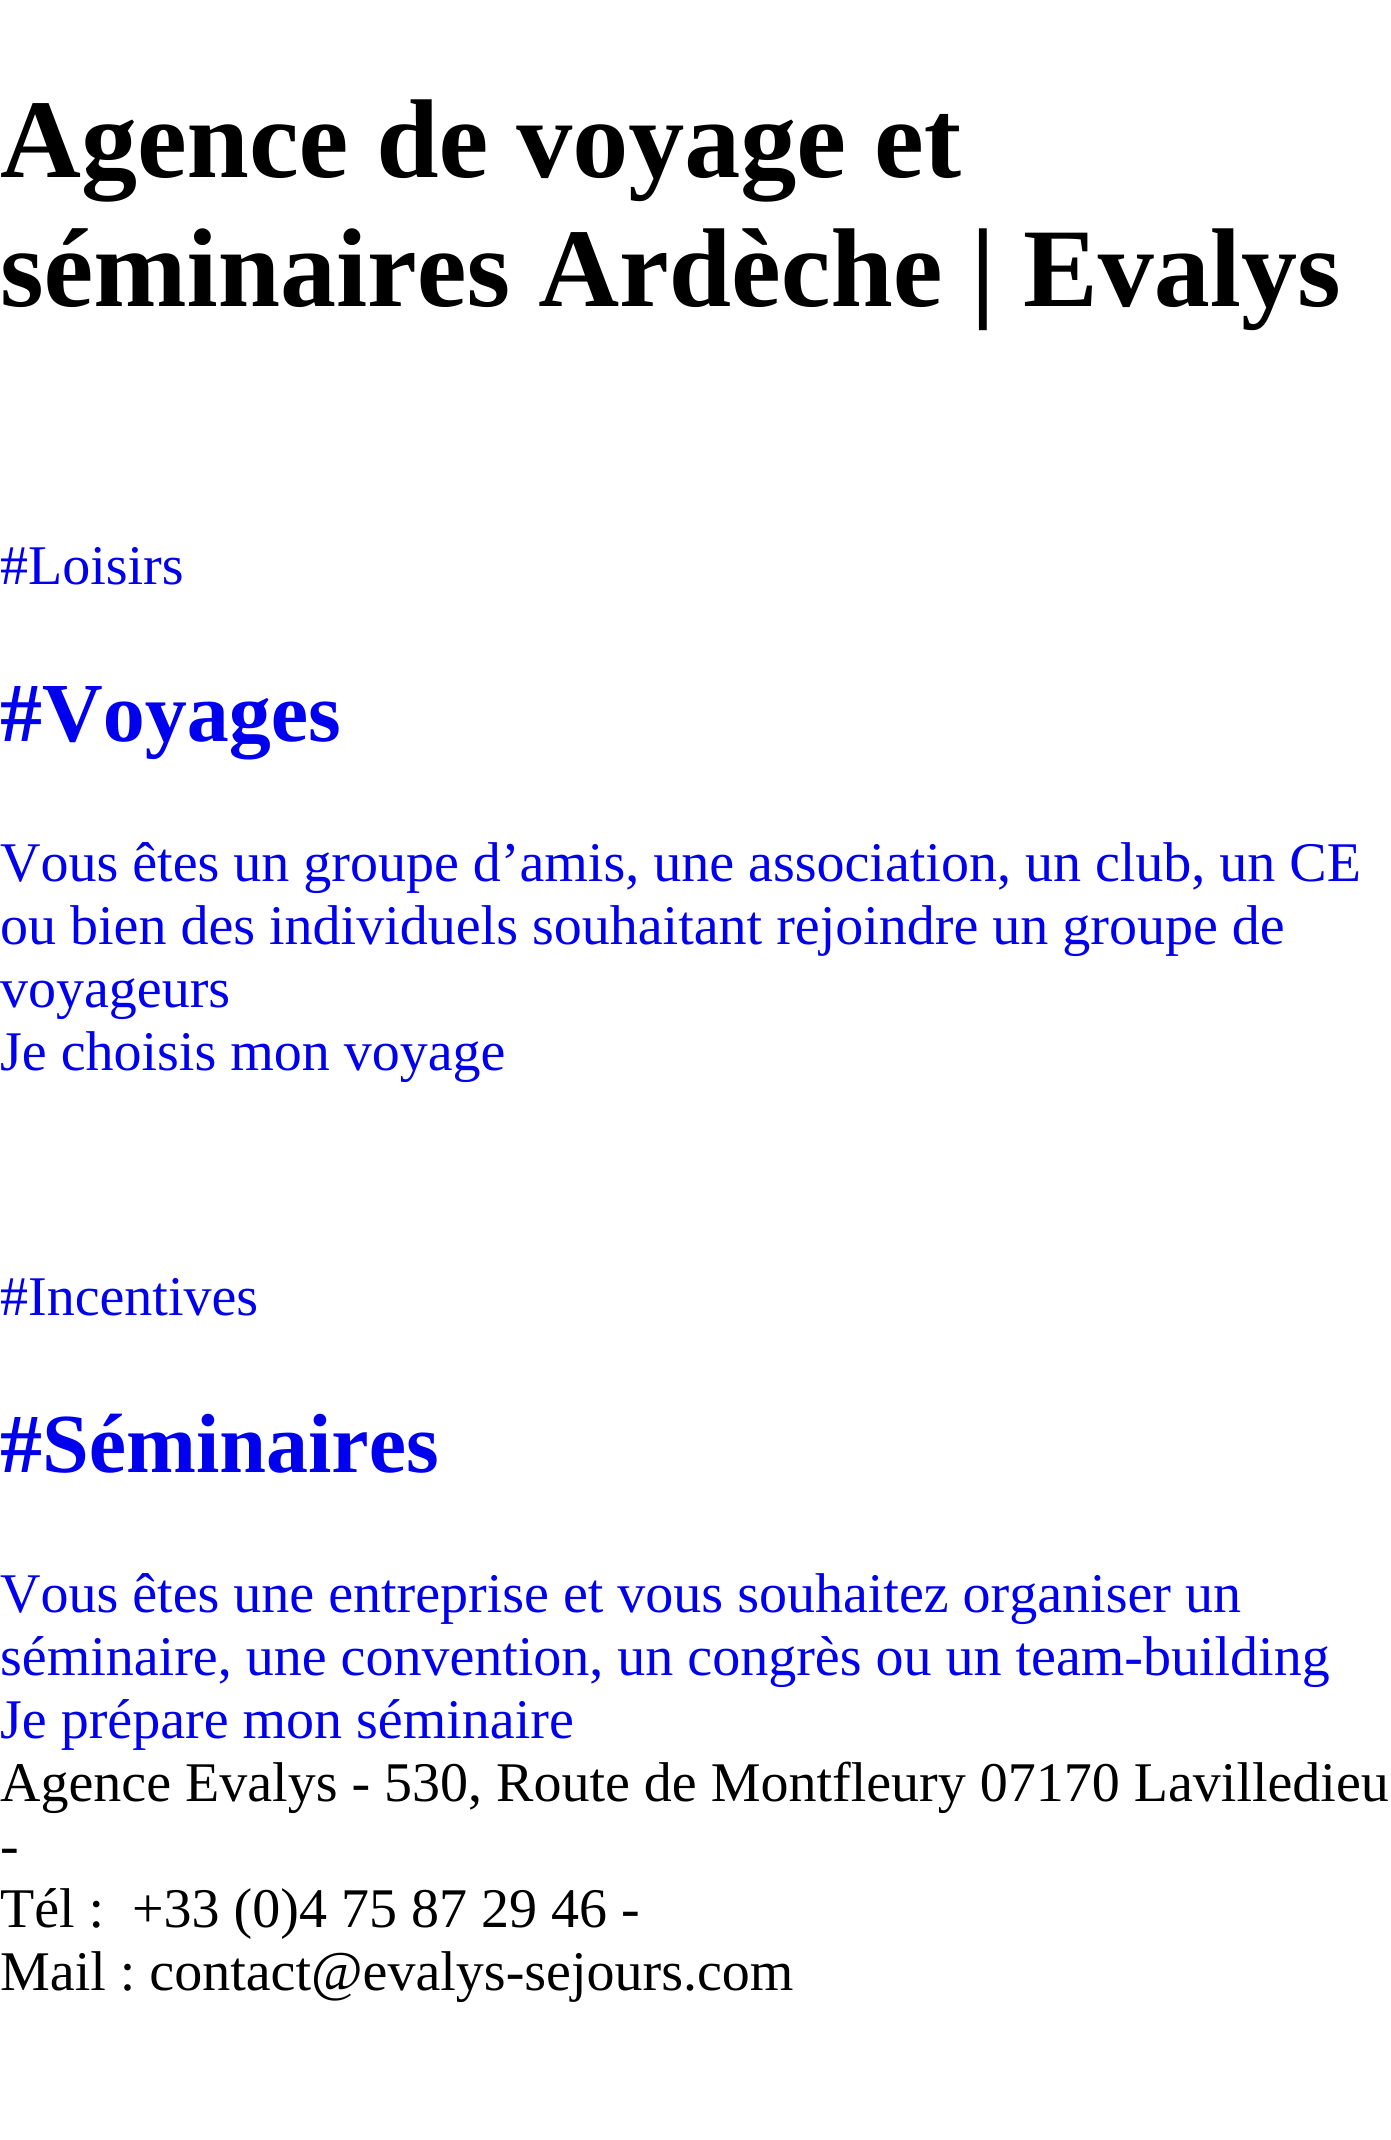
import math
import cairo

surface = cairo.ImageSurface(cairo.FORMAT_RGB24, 1391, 2140)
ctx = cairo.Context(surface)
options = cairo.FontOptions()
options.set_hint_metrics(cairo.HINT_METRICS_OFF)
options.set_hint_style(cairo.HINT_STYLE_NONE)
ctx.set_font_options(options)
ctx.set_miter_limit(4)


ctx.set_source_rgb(1, 1, 1)
ctx.paint()
ctx.select_font_face("Liberation Serif", cairo.FONT_SLANT_NORMAL, cairo.FONT_WEIGHT_BOLD)
ctx.set_font_size(112)
ctx.set_source_rgb(0, 0, 0)
ctx.move_to(0, 177)
ctx.show_text("Agence de voyage et")
ctx.move_to(0, 306)
ctx.show_text("séminaires Ardèche | Evalys")
ctx.select_font_face("Liberation Serif")
ctx.set_font_size(56)
ctx.set_source_rgb(0, 0, 0.933)
ctx.move_to(0, 584)
ctx.show_text("#Loisirs")
ctx.select_font_face("Liberation Serif", cairo.FONT_SLANT_NORMAL, cairo.FONT_WEIGHT_BOLD)
ctx.set_font_size(84)
ctx.move_to(0, 741)
ctx.show_text("#Voyages")
ctx.select_font_face("Liberation Serif")
ctx.set_font_size(56)
ctx.move_to(0, 881)
ctx.show_text("Vous êtes un groupe d’amis, une association, un club, un CE")
ctx.move_to(0, 944)
ctx.show_text("ou bien des individuels souhaitant rejoindre un groupe de")
ctx.move_to(0, 1007)
ctx.show_text("voyageurs")
ctx.move_to(0, 1070)
ctx.show_text("Je choisis mon voyage")
ctx.move_to(0, 1315)
ctx.show_text("#Incentives")
ctx.select_font_face("Liberation Serif", cairo.FONT_SLANT_NORMAL, cairo.FONT_WEIGHT_BOLD)
ctx.set_font_size(84)
ctx.move_to(0, 1472)
ctx.show_text("#Séminaires")
ctx.select_font_face("Liberation Serif")
ctx.set_font_size(56)
ctx.move_to(0, 1612)
ctx.show_text("Vous êtes une entreprise et vous souhaitez organiser un")
ctx.move_to(0, 1675)
ctx.show_text("séminaire, une convention, un congrès ou un team-building")
ctx.move_to(0, 1738)
ctx.show_text("Je prépare mon séminaire")
ctx.set_source_rgb(0, 0, 0)
ctx.move_to(0, 1801)
ctx.show_text("Agence Evalys - 530, Route de Montfleury 07170 Lavilledieu")
ctx.move_to(0, 1864)
ctx.show_text("-")
ctx.move_to(0, 1927)
ctx.show_text("Tél :")
ctx.move_to(132, 1927)
ctx.show_text("+33 (0)4 75 87 29 46 -")
ctx.move_to(0, 1990)
ctx.show_text("Mail : contact@evalys-sejours.com")
surface.write_to_png("page.png")
